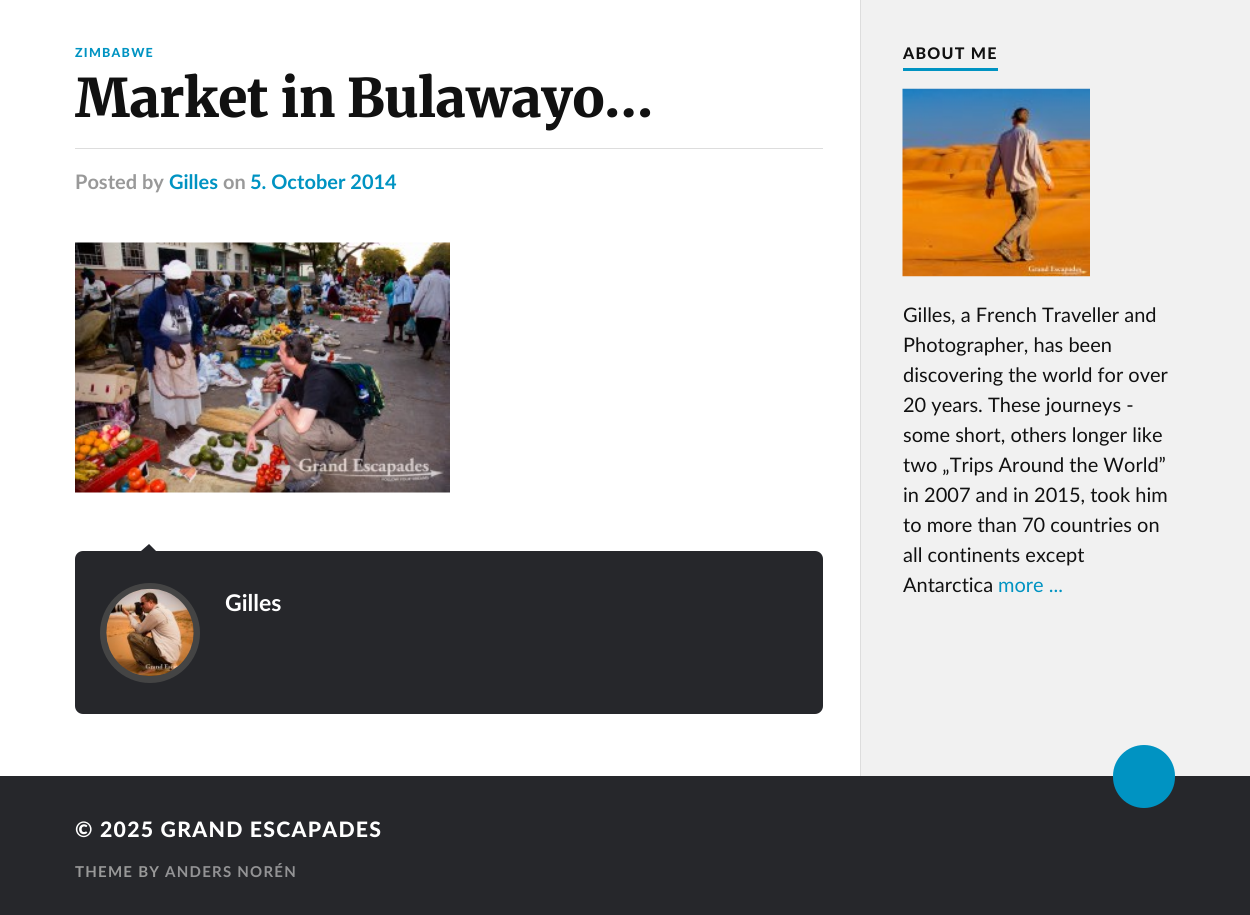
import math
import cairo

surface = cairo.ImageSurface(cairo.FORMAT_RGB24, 1250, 915)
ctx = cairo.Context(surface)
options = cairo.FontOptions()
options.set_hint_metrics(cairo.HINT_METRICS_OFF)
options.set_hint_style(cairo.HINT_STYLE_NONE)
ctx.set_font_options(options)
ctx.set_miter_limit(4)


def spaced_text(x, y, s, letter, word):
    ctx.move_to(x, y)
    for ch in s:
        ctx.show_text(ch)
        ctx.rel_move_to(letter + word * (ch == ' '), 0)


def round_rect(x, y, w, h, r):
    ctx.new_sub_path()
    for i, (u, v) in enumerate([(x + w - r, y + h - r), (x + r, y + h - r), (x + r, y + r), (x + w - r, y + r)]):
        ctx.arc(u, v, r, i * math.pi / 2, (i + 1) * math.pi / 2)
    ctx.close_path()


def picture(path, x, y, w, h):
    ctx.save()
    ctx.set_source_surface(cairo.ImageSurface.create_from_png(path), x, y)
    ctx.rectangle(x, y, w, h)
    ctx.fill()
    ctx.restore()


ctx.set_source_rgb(0.945, 0.945, 0.945)
ctx.paint()
ctx.set_source_rgb(1, 1, 1)
ctx.rectangle(0, 0, 860, 776)
ctx.fill()
ctx.select_font_face("Lato Black")
ctx.set_font_size(12.5)
ctx.set_source_rgb(0, 0.576, 0.761)
spaced_text(75, 57, "ZIMBABWE", 1.25, 0)
ctx.select_font_face("Merriweather Black")
ctx.set_font_size(53.1)
ctx.set_source_rgb(0.067, 0.067, 0.067)
spaced_text(75, 117, "Market in Bulawayo…", -0.5, 0)
ctx.set_source_rgb(0.867, 0.867, 0.867)
ctx.rectangle(75, 148, 748, 1)
ctx.fill()
ctx.select_font_face("Lato", cairo.FONT_SLANT_NORMAL, cairo.FONT_WEIGHT_BOLD)
ctx.set_font_size(20)
ctx.set_source_rgb(0.6, 0.6, 0.6)
ctx.move_to(75, 189)
ctx.show_text("Posted by")
ctx.set_source_rgb(0, 0.576, 0.761)
ctx.move_to(169, 189)
ctx.show_text("Gilles")
ctx.set_source_rgb(0.6, 0.6, 0.6)
ctx.move_to(223, 189)
ctx.show_text("on")
ctx.set_source_rgb(0, 0.576, 0.761)
ctx.move_to(250, 189)
ctx.show_text("5. October 2014")
picture("img1.png", 75, 242, 375, 251)
ctx.set_source_rgb(0.149, 0.153, 0.169)
round_rect(75, 551, 748, 163, 8)
ctx.fill()
ctx.set_source_rgb(0.145, 0.149, 0.169)
ctx.new_path()
ctx.move_to(156, 551)
ctx.line_to(141, 551)
ctx.line_to(149, 544)
ctx.close_path()
ctx.fill()
ctx.set_source_rgb(0.267, 0.267, 0.267)
ctx.arc(150, 633, 50, 0, 2 * math.pi)
ctx.fill()
picture("img2.png", 106, 588, 88, 88)
ctx.set_font_size(23)
ctx.set_source_rgb(1, 1, 1)
ctx.move_to(225, 611)
ctx.show_text("Gilles")
ctx.set_source_rgb(0.867, 0.867, 0.867)
ctx.rectangle(860, 0, 1, 776)
ctx.fill()
ctx.set_source_rgb(0, 0.576, 0.761)
ctx.rectangle(903, 68, 95, 3)
ctx.fill()
ctx.select_font_face("Lato Black")
ctx.set_font_size(16)
ctx.set_source_rgb(0.067, 0.067, 0.067)
spaced_text(903, 59, "ABOUT ME", 1.25, 0)
picture("img3.png", 902, 88, 188, 189)
ctx.select_font_face("Lato")
ctx.set_font_size(20)
ctx.move_to(903, 322)
ctx.show_text("Gilles, a French Traveller and")
ctx.move_to(903, 352)
ctx.show_text("Photographer, has been")
ctx.move_to(903, 382)
ctx.show_text("discovering the world for over")
ctx.move_to(903, 412)
ctx.show_text("20 years. These journeys -")
ctx.move_to(903, 442)
ctx.show_text("some short, others longer like")
ctx.move_to(903, 472)
ctx.show_text("two „Trips Around the World”")
ctx.move_to(903, 502)
ctx.show_text("in 2007 and in 2015, took him")
ctx.move_to(903, 532)
ctx.show_text("to more than 70 countries on")
ctx.move_to(903, 562)
ctx.show_text("all continents except")
ctx.move_to(903, 592)
ctx.show_text("Antarctica")
ctx.set_source_rgb(0, 0.576, 0.761)
ctx.move_to(998, 592)
ctx.show_text("more ...")
ctx.set_source_rgb(0.149, 0.153, 0.169)
ctx.rectangle(0, 776, 1250, 139)
ctx.fill()
ctx.set_source_rgb(0, 0.576, 0.761)
round_rect(1113, 745, 62, 63, 31)
ctx.fill()
ctx.select_font_face("Lato Black")
ctx.set_font_size(21.25)
ctx.set_source_rgb(1, 1, 1)
spaced_text(75, 837, "© 2025 GRAND ESCAPADES", 1.25, 0)
ctx.select_font_face("Lato", cairo.FONT_SLANT_NORMAL, cairo.FONT_WEIGHT_BOLD)
ctx.set_font_size(15)
ctx.set_source_rgb(0.6, 0.6, 0.6)
spaced_text(75, 877, "THEME BY", 1.25, 0)
ctx.set_source_rgb(0.576, 0.576, 0.584)
spaced_text(165, 877, "ANDERS NORÉN", 1.25, 0)
surface.write_to_png("page.png")
